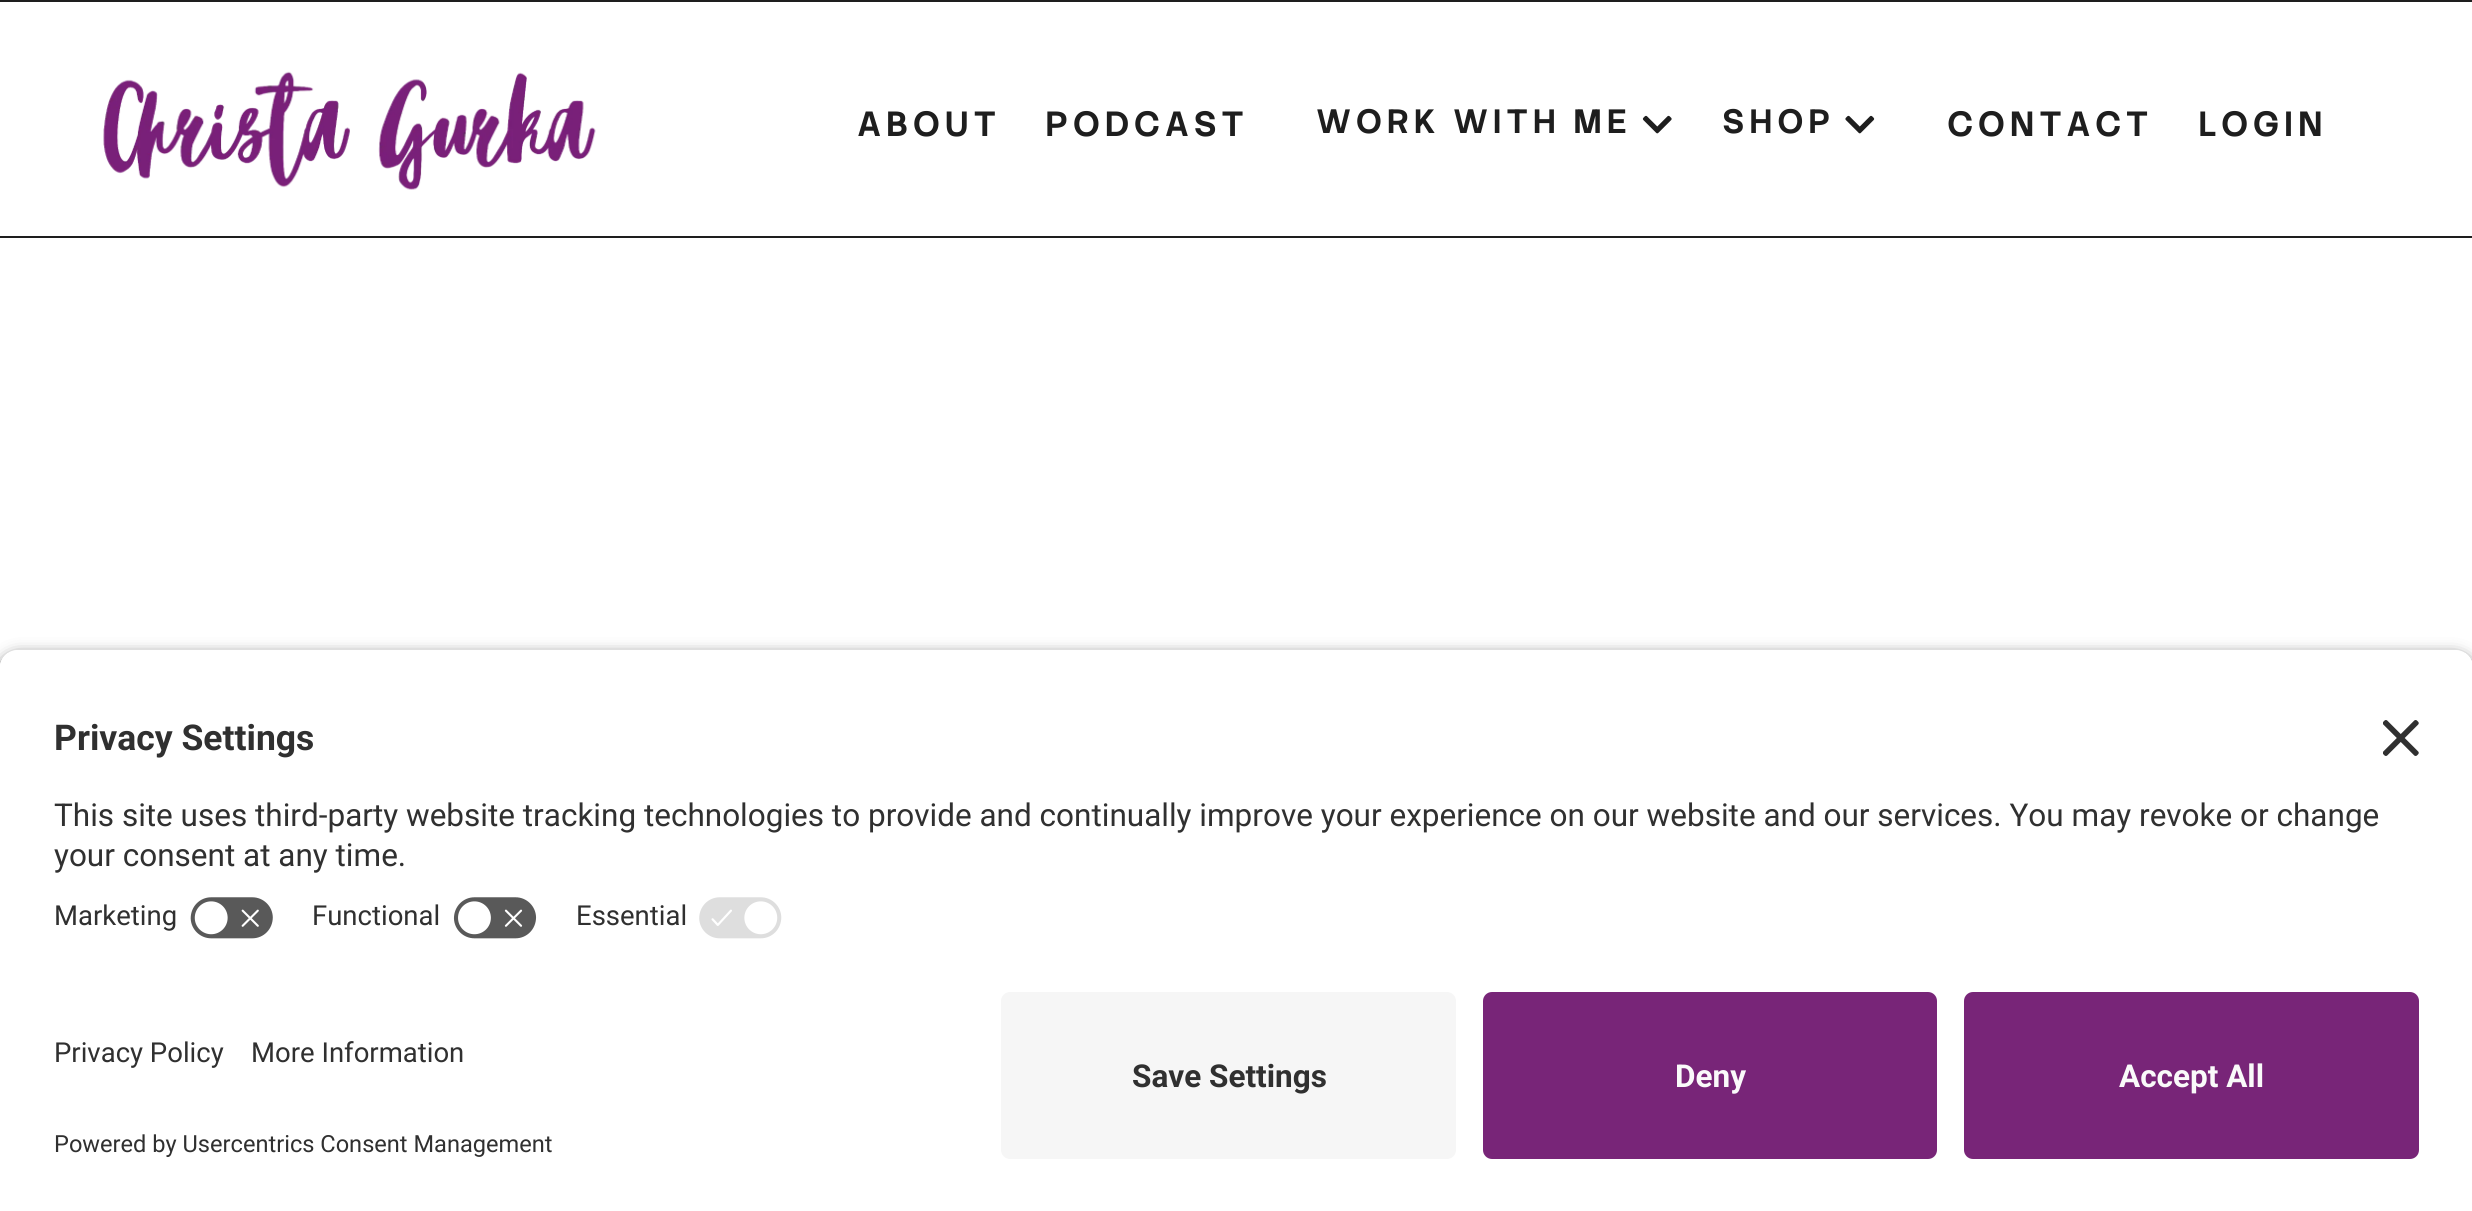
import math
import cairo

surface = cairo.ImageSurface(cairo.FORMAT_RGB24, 2472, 1211)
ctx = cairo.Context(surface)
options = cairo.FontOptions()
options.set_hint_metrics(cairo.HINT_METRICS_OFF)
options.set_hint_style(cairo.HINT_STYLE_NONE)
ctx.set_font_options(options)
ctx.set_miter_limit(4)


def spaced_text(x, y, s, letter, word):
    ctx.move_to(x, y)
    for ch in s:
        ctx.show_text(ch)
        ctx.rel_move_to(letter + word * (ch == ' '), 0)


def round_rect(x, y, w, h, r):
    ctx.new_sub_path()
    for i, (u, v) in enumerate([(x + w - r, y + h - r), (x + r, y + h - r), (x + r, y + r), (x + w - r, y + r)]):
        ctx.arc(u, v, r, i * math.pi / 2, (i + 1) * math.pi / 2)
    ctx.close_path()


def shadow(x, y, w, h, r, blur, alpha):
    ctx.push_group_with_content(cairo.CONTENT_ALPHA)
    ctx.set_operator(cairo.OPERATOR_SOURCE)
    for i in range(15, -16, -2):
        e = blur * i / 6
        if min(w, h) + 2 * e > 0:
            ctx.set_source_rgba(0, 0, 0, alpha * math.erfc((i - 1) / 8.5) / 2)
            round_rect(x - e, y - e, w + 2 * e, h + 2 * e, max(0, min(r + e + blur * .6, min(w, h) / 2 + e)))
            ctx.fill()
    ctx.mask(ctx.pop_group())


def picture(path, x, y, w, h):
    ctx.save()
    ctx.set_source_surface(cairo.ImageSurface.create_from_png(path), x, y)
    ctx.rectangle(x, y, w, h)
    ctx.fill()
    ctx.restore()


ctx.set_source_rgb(1, 1, 1)
ctx.paint()
ctx.set_source_rgb(0.118, 0.118, 0.118)
ctx.rectangle(0, 0, 2472, 2)
ctx.fill()
ctx.rectangle(0, 236, 2472, 2)
ctx.fill()
picture("img1.png", 103, 71, 493, 119)
ctx.select_font_face("Stack Sans Text SemiBold")
ctx.set_font_size(35)
spaced_text(857, 136, "ABOUT", 4.5, 0)
spaced_text(1045, 136, "PODCAST", 4.5, 0)
ctx.set_font_size(33.75)
spaced_text(1316, 133, "WORK WITH ME", 4.5, 0)
picture("img2.png", 1642, 115, 30, 19)
spaced_text(1722, 133, "SHOP", 4.5, 0)
picture("img3.png", 1845, 115, 30, 19)
ctx.set_font_size(35)
spaced_text(1947, 136, "CONTACT", 4.5, 0)
spaced_text(2198, 136, "LOGIN", 4.5, 0)
ctx.save()
ctx.set_fill_rule(cairo.FILL_RULE_EVEN_ODD)
ctx.new_path()
ctx.move_to(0, 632)
ctx.line_to(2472, 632)
ctx.line_to(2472, 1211)
ctx.line_to(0, 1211)
ctx.close_path()
ctx.move_to(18, 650)
ctx.line_to(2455, 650)
ctx.curve_to(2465, 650, 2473, 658, 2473, 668)
ctx.line_to(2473, 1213)
ctx.line_to(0, 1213)
ctx.line_to(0, 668)
ctx.curve_to(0, 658, 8, 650, 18, 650)
ctx.close_path()
ctx.clip()
ctx.set_source_rgb(0, 0, 0)
shadow(0, 657, 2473, 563, 18, 8, 0.8)
ctx.restore()
ctx.save()
ctx.new_path()
ctx.move_to(18, 650)
ctx.line_to(2455, 650)
ctx.curve_to(2465, 650, 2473, 658, 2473, 668)
ctx.line_to(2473, 974)
ctx.line_to(0, 974)
ctx.line_to(0, 668)
ctx.curve_to(0, 658, 8, 650, 18, 650)
ctx.close_path()
ctx.clip()
ctx.set_source_rgb(1, 1, 1)
ctx.rectangle(0, 653, 2472, 321)
ctx.fill()
ctx.rectangle(0, 653, 2472, 231)
ctx.fill()
ctx.restore()
ctx.select_font_face("Roboto", cairo.FONT_SLANT_NORMAL, cairo.FONT_WEIGHT_BOLD)
ctx.set_font_size(35.5)
ctx.set_source_rgb(0.188, 0.188, 0.188)
ctx.move_to(54, 750)
ctx.show_text("Privacy Settings")
picture("img4.png", 2383, 720, 36, 36)
ctx.select_font_face("Roboto")
ctx.set_font_size(31.5)
ctx.move_to(54, 826)
ctx.show_text("This site uses third-party website tracking technologies to provide and continually improve your experience on our website and our services. You may revoke or change")
ctx.move_to(54, 866)
ctx.show_text("your consent at any time.")
ctx.set_font_size(27.5)
ctx.move_to(54, 925)
ctx.show_text("Marketing")
picture("img5.png", 190, 897, 83, 42)
ctx.move_to(312, 925)
ctx.show_text("Functional")
picture("img6.png", 453, 897, 84, 42)
ctx.move_to(576, 925)
ctx.show_text("Essential")
picture("img7.png", 699, 897, 83, 42)
ctx.move_to(54, 1062)
ctx.show_text("Privacy Policy")
ctx.move_to(251, 1062)
ctx.show_text("More Information")
ctx.set_font_size(23.6)
ctx.move_to(54, 1152)
ctx.show_text("Powered by Usercentrics Consent Management")
ctx.set_source_rgb(0.961, 0.961, 0.961)
round_rect(1001, 992, 455, 167, 9)
ctx.fill()
ctx.select_font_face("Roboto", cairo.FONT_SLANT_NORMAL, cairo.FONT_WEIGHT_BOLD)
ctx.set_font_size(31.5)
ctx.set_source_rgb(0.188, 0.188, 0.188)
ctx.move_to(1132, 1087)
ctx.show_text("Save Settings")
ctx.set_source_rgb(0.471, 0.145, 0.471)
round_rect(1483, 992, 454, 167, 9)
ctx.fill()
ctx.set_source_rgb(0.98, 0.98, 0.98)
ctx.move_to(1675, 1087)
ctx.show_text("Deny")
ctx.set_source_rgb(0.471, 0.145, 0.471)
round_rect(1964, 992, 455, 167, 9)
ctx.fill()
ctx.set_source_rgb(0.98, 0.98, 0.98)
ctx.move_to(2119, 1087)
ctx.show_text("Accept All")
surface.write_to_png("page.png")
